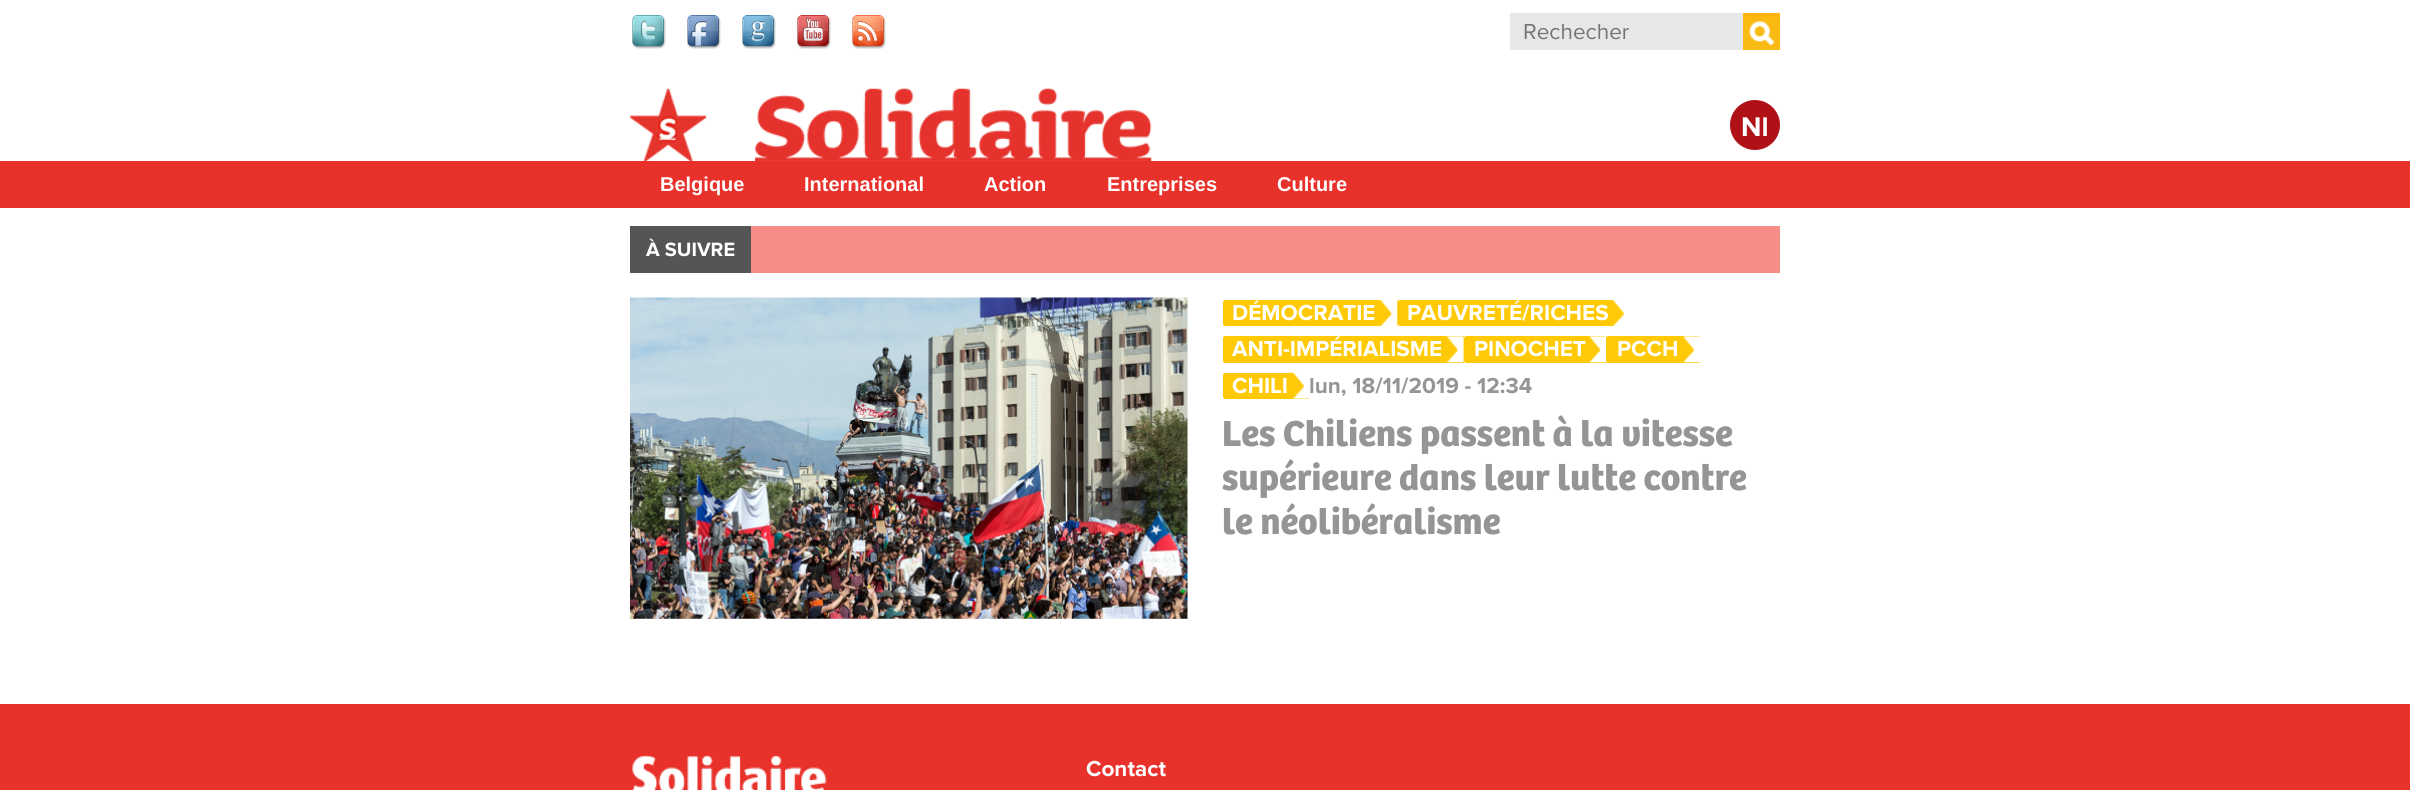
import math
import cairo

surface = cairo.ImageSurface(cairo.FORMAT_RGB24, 2410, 790)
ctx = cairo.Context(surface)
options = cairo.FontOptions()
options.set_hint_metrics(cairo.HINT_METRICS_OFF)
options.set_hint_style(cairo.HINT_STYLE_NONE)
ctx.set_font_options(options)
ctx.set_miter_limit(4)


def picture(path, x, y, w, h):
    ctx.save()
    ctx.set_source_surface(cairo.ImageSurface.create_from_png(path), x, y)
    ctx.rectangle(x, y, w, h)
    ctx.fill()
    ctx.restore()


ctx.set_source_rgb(1, 1, 1)
ctx.paint()
picture("img1.png", 632, 15, 34, 34)
picture("img2.png", 687, 15, 34, 34)
picture("img3.png", 742, 15, 34, 34)
picture("img4.png", 796, 15, 35, 34)
picture("img5.png", 852, 15, 34, 34)
ctx.set_source_rgb(0.902, 0.906, 0.91)
ctx.rectangle(1510, 13, 233, 37)
ctx.fill()
ctx.select_font_face("Proxima Nova")
ctx.set_font_size(22.5)
ctx.set_source_rgb(0.459, 0.459, 0.459)
ctx.move_to(1523, 39)
ctx.show_text("Rechecher")
ctx.set_source_rgb(0.976, 0.729, 0.078)
ctx.rectangle(1743, 18, 37, 32)
ctx.fill()
picture("img6.png", 1748, 21, 27, 26)
ctx.set_source_rgb(1, 0.71, 0.043)
ctx.rectangle(1743, 13, 37, 5)
ctx.fill()
picture("img7.png", 630, 88, 77, 73)
picture("img8.png", 755, 88, 397, 73)
ctx.set_source_rgb(0.69, 0.067, 0.086)
ctx.arc(1755, 125, 25, 0, 2 * math.pi)
ctx.fill()
ctx.select_font_face("Proxima Nova", cairo.FONT_SLANT_NORMAL, cairo.FONT_WEIGHT_BOLD)
ctx.set_font_size(28)
ctx.set_source_rgb(1, 1, 1)
ctx.move_to(1741, 136)
ctx.show_text("Nl")
ctx.set_source_rgb(0.91, 0.192, 0.165)
ctx.rectangle(0, 161, 2410, 47)
ctx.fill()
ctx.select_font_face("Liberation Sans", cairo.FONT_SLANT_NORMAL, cairo.FONT_WEIGHT_BOLD)
ctx.set_font_size(20)
ctx.set_source_rgb(1, 1, 1)
ctx.move_to(660, 191)
ctx.show_text("Belgique")
ctx.move_to(804, 191)
ctx.show_text("International")
ctx.move_to(984, 191)
ctx.show_text("Action")
ctx.move_to(1107, 191)
ctx.show_text("Entreprises")
ctx.move_to(1277, 191)
ctx.show_text("Culture")
ctx.set_source_rgb(0.961, 0.553, 0.525)
ctx.rectangle(751, 226, 1029, 47)
ctx.fill()
ctx.set_source_rgb(0.333, 0.333, 0.333)
ctx.rectangle(630, 226, 121, 47)
ctx.fill()
ctx.select_font_face("Proxima Nova", cairo.FONT_SLANT_NORMAL, cairo.FONT_WEIGHT_BOLD)
ctx.set_source_rgb(1, 1, 1)
ctx.move_to(646, 256)
ctx.show_text("À SUIVRE")
picture("img9.png", 630, 297, 558, 322)
ctx.set_source_rgb(1, 0.792, 0.02)
ctx.new_path()
ctx.move_to(1225.5, 300)
ctx.line_to(1398, 300)
ctx.line_to(1398, 326)
ctx.line_to(1225.5, 326)
ctx.curve_to(1224, 326, 1223, 325, 1223, 323.5)
ctx.line_to(1223, 302.5)
ctx.curve_to(1223, 301, 1224, 300, 1225.5, 300)
ctx.close_path()
ctx.fill()
picture("img10.png", 1376, 300, 22, 27)
ctx.set_font_size(22.5)
ctx.set_source_rgb(1, 1, 1)
ctx.move_to(1232, 320)
ctx.show_text("DÉMOCRATIE")
ctx.set_source_rgb(1, 0.792, 0.02)
ctx.new_path()
ctx.move_to(1400.5, 300)
ctx.line_to(1630, 300)
ctx.line_to(1630, 326)
ctx.line_to(1400.5, 326)
ctx.curve_to(1399, 326, 1398, 325, 1398, 323.5)
ctx.line_to(1398, 302.5)
ctx.curve_to(1398, 301, 1399, 300, 1400.5, 300)
ctx.close_path()
ctx.fill()
picture("img11.png", 1609, 300, 21, 27)
ctx.set_source_rgb(1, 1, 1)
ctx.move_to(1407, 320)
ctx.show_text("PAUVRETÉ/RICHES")
ctx.set_source_rgb(1, 0.792, 0.02)
ctx.new_path()
ctx.move_to(1225.5, 336)
ctx.line_to(1464, 336)
ctx.line_to(1464, 363)
ctx.line_to(1225.5, 363)
ctx.curve_to(1224, 363, 1223, 362, 1223, 360.5)
ctx.line_to(1223, 338.5)
ctx.curve_to(1223, 337, 1224, 336, 1225.5, 336)
ctx.close_path()
ctx.fill()
picture("img12.png", 1446, 336, 18, 27)
ctx.set_source_rgb(1, 1, 1)
ctx.move_to(1232, 356)
ctx.show_text("ANTI-IMPÉRIALISME")
ctx.set_source_rgb(1, 0.792, 0.02)
ctx.new_path()
ctx.move_to(1466.5, 336)
ctx.line_to(1606, 336)
ctx.line_to(1606, 363)
ctx.line_to(1466.5, 363)
ctx.curve_to(1465, 363, 1464, 362, 1464, 360.5)
ctx.line_to(1464, 338.5)
ctx.curve_to(1464, 337, 1465, 336, 1466.5, 336)
ctx.close_path()
ctx.fill()
picture("img13.png", 1588, 336, 18, 27)
ctx.set_source_rgb(1, 1, 1)
ctx.move_to(1474, 356)
ctx.show_text("PINOCHET")
ctx.set_source_rgb(1, 0.792, 0.02)
ctx.new_path()
ctx.move_to(1608.5, 336)
ctx.line_to(1700, 336)
ctx.line_to(1700, 363)
ctx.line_to(1608.5, 363)
ctx.curve_to(1607, 363, 1606, 362, 1606, 360.5)
ctx.line_to(1606, 338.5)
ctx.curve_to(1606, 337, 1607, 336, 1608.5, 336)
ctx.close_path()
ctx.fill()
picture("img14.png", 1682, 336, 18, 27)
ctx.set_source_rgb(1, 1, 1)
ctx.move_to(1617, 356)
ctx.show_text("PCCH")
ctx.set_source_rgb(1, 0.792, 0.02)
ctx.new_path()
ctx.move_to(1225.5, 373)
ctx.line_to(1310, 373)
ctx.line_to(1310, 399)
ctx.line_to(1225.5, 399)
ctx.curve_to(1224, 399, 1223, 398, 1223, 396.5)
ctx.line_to(1223, 375.5)
ctx.curve_to(1223, 374, 1224, 373, 1225.5, 373)
ctx.close_path()
ctx.fill()
picture("img15.png", 1288, 372, 22, 27)
ctx.set_source_rgb(1, 1, 1)
ctx.move_to(1232, 393)
ctx.show_text("CHILI")
ctx.set_source_rgb(0.576, 0.584, 0.592)
ctx.move_to(1309, 393)
ctx.show_text("lun, 18/11/2019 - 12:34")
ctx.select_font_face("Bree", cairo.FONT_SLANT_NORMAL, cairo.FONT_WEIGHT_BOLD)
ctx.set_font_size(37.5)
ctx.move_to(1222, 446)
ctx.show_text("Les Chiliens passent à la vitesse")
ctx.move_to(1222, 490)
ctx.show_text("supérieure dans leur lutte contre")
ctx.move_to(1222, 534)
ctx.show_text("le néolibéralisme")
ctx.set_source_rgb(0.91, 0.192, 0.165)
ctx.rectangle(0, 704, 2410, 86)
ctx.fill()
picture("img16.png", 632, 755, 195, 35)
ctx.select_font_face("Proxima Nova", cairo.FONT_SLANT_NORMAL, cairo.FONT_WEIGHT_BOLD)
ctx.set_font_size(22.5)
ctx.set_source_rgb(1, 1, 1)
ctx.move_to(1086, 776)
ctx.show_text("Contact")
surface.write_to_png("page.png")
